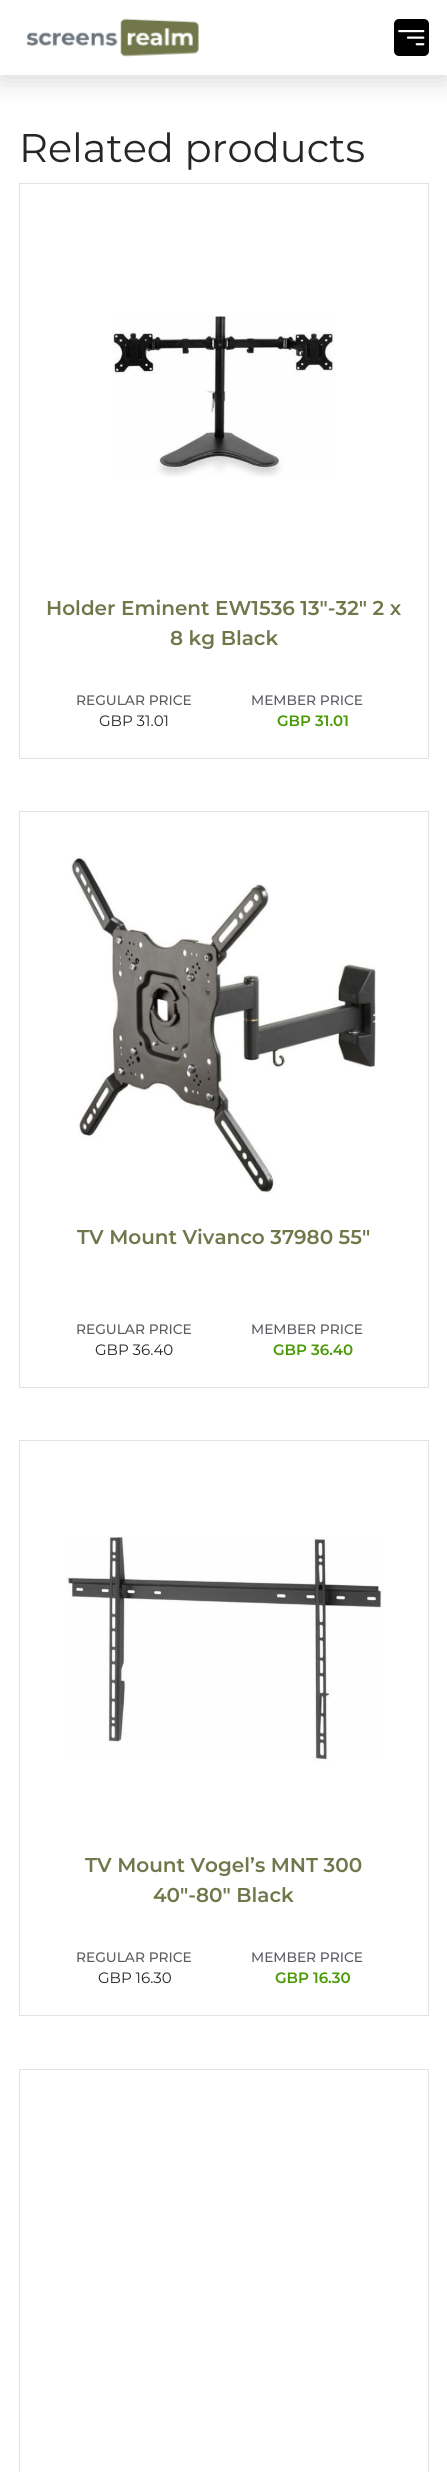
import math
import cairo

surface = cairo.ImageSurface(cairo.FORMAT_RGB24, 447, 2472)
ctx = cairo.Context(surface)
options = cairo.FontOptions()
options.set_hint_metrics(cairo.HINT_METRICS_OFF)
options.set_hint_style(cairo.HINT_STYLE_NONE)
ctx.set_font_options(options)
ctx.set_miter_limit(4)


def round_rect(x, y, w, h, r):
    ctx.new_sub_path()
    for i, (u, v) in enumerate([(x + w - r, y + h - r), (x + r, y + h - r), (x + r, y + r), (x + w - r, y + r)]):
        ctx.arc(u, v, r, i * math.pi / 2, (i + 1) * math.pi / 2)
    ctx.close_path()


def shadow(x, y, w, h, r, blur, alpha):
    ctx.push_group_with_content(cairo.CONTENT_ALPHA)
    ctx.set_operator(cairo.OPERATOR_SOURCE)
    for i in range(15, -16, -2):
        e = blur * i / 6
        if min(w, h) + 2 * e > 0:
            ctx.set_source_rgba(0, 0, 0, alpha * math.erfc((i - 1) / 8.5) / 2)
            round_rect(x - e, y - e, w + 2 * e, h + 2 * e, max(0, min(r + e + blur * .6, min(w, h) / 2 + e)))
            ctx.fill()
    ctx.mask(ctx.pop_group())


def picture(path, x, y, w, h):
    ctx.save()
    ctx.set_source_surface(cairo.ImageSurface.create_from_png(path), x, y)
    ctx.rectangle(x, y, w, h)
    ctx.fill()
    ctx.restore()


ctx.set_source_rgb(1, 1, 1)
ctx.paint()
ctx.set_source_rgb(0, 0, 0)
shadow(0, 6, 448, 75, 0, 12.5, 0.15)
ctx.set_source_rgb(1, 1, 1)
ctx.rectangle(0, 0, 447, 75)
ctx.fill()
picture("img1.png", 27, 18, 172, 39)
ctx.set_source_rgb(0, 0, 0)
round_rect(394, 19, 35, 37, 5)
ctx.fill()
picture("img2.png", 398, 30, 27, 16)
ctx.select_font_face("Montserrat")
ctx.set_font_size(40)
ctx.set_source_rgb(0.149, 0.149, 0.149)
ctx.move_to(19, 162)
ctx.show_text("Related products")
ctx.rectangle(19.5, 183.5, 409, 575)
ctx.set_source_rgb(0.89, 0.89, 0.89)
ctx.set_line_width(1)
ctx.stroke()
picture("img3.png", 112, 315, 223, 162)
ctx.select_font_face("Montserrat SemiBold")
ctx.set_font_size(20)
ctx.set_source_rgb(0.443, 0.467, 0.294)
ctx.move_to(46, 615)
ctx.show_text("Holder Eminent EW1536 13″-32″ 2 x")
ctx.move_to(170, 645)
ctx.show_text("8 kg Black")
ctx.select_font_face("Montserrat Medium")
ctx.set_font_size(13.75)
ctx.set_source_rgb(0.361, 0.361, 0.361)
ctx.move_to(76, 705)
ctx.show_text("REGULAR PRICE")
ctx.select_font_face("Montserrat")
ctx.set_font_size(15)
ctx.set_source_rgb(0.149, 0.149, 0.149)
ctx.move_to(99, 726)
ctx.show_text("GBP 31.01")
ctx.select_font_face("Montserrat Medium")
ctx.set_font_size(13.75)
ctx.set_source_rgb(0.361, 0.361, 0.388)
ctx.move_to(251, 705)
ctx.show_text("MEMBER PRICE")
ctx.select_font_face("Montserrat SemiBold")
ctx.set_font_size(15)
ctx.set_source_rgb(0.29, 0.604, 0.02)
ctx.move_to(277, 726)
ctx.show_text("GBP")
ctx.move_to(315, 726)
ctx.show_text("31.01")
ctx.rectangle(19.5, 811.5, 409, 576)
ctx.set_source_rgb(0.89, 0.89, 0.89)
ctx.stroke()
picture("img4.png", 69, 856, 307, 338)
ctx.set_font_size(20)
ctx.set_source_rgb(0.443, 0.467, 0.294)
ctx.move_to(77, 1244)
ctx.show_text("TV Mount Vivanco 37980 55″")
ctx.select_font_face("Montserrat Medium")
ctx.set_font_size(13.75)
ctx.set_source_rgb(0.361, 0.361, 0.361)
ctx.move_to(76, 1334)
ctx.show_text("REGULAR PRICE")
ctx.select_font_face("Montserrat")
ctx.set_font_size(15)
ctx.set_source_rgb(0.149, 0.149, 0.149)
ctx.move_to(95, 1355)
ctx.show_text("GBP 36.40")
ctx.select_font_face("Montserrat Medium")
ctx.set_font_size(13.75)
ctx.set_source_rgb(0.361, 0.361, 0.388)
ctx.move_to(251, 1334)
ctx.show_text("MEMBER PRICE")
ctx.select_font_face("Montserrat SemiBold")
ctx.set_font_size(15)
ctx.set_source_rgb(0.29, 0.604, 0.02)
ctx.move_to(273, 1355)
ctx.show_text("GBP")
ctx.move_to(311, 1355)
ctx.show_text("36.40")
ctx.rectangle(19.5, 1440.5, 409, 575)
ctx.set_source_rgb(0.89, 0.89, 0.89)
ctx.stroke()
picture("img5.png", 66, 1536, 317, 225)
ctx.set_font_size(20)
ctx.set_source_rgb(0.443, 0.467, 0.294)
ctx.move_to(85, 1872)
ctx.show_text("TV Mount Vogel’s MNT 300")
ctx.move_to(153, 1902)
ctx.show_text("40″-80″ Black")
ctx.select_font_face("Montserrat Medium")
ctx.set_font_size(13.75)
ctx.set_source_rgb(0.361, 0.361, 0.361)
ctx.move_to(76, 1962)
ctx.show_text("REGULAR PRICE")
ctx.select_font_face("Montserrat")
ctx.set_font_size(15)
ctx.set_source_rgb(0.149, 0.149, 0.149)
ctx.move_to(98, 1983)
ctx.show_text("GBP 16.30")
ctx.select_font_face("Montserrat Medium")
ctx.set_font_size(13.75)
ctx.set_source_rgb(0.361, 0.361, 0.388)
ctx.move_to(251, 1962)
ctx.show_text("MEMBER PRICE")
ctx.select_font_face("Montserrat SemiBold")
ctx.set_font_size(15)
ctx.set_source_rgb(0.29, 0.604, 0.02)
ctx.move_to(275, 1983)
ctx.show_text("GBP")
ctx.move_to(313, 1983)
ctx.show_text("16.30")
ctx.rectangle(19.5, 2069.5, 409, 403)
ctx.set_source_rgb(0.89, 0.89, 0.89)
ctx.stroke()
surface.write_to_png("page.png")
